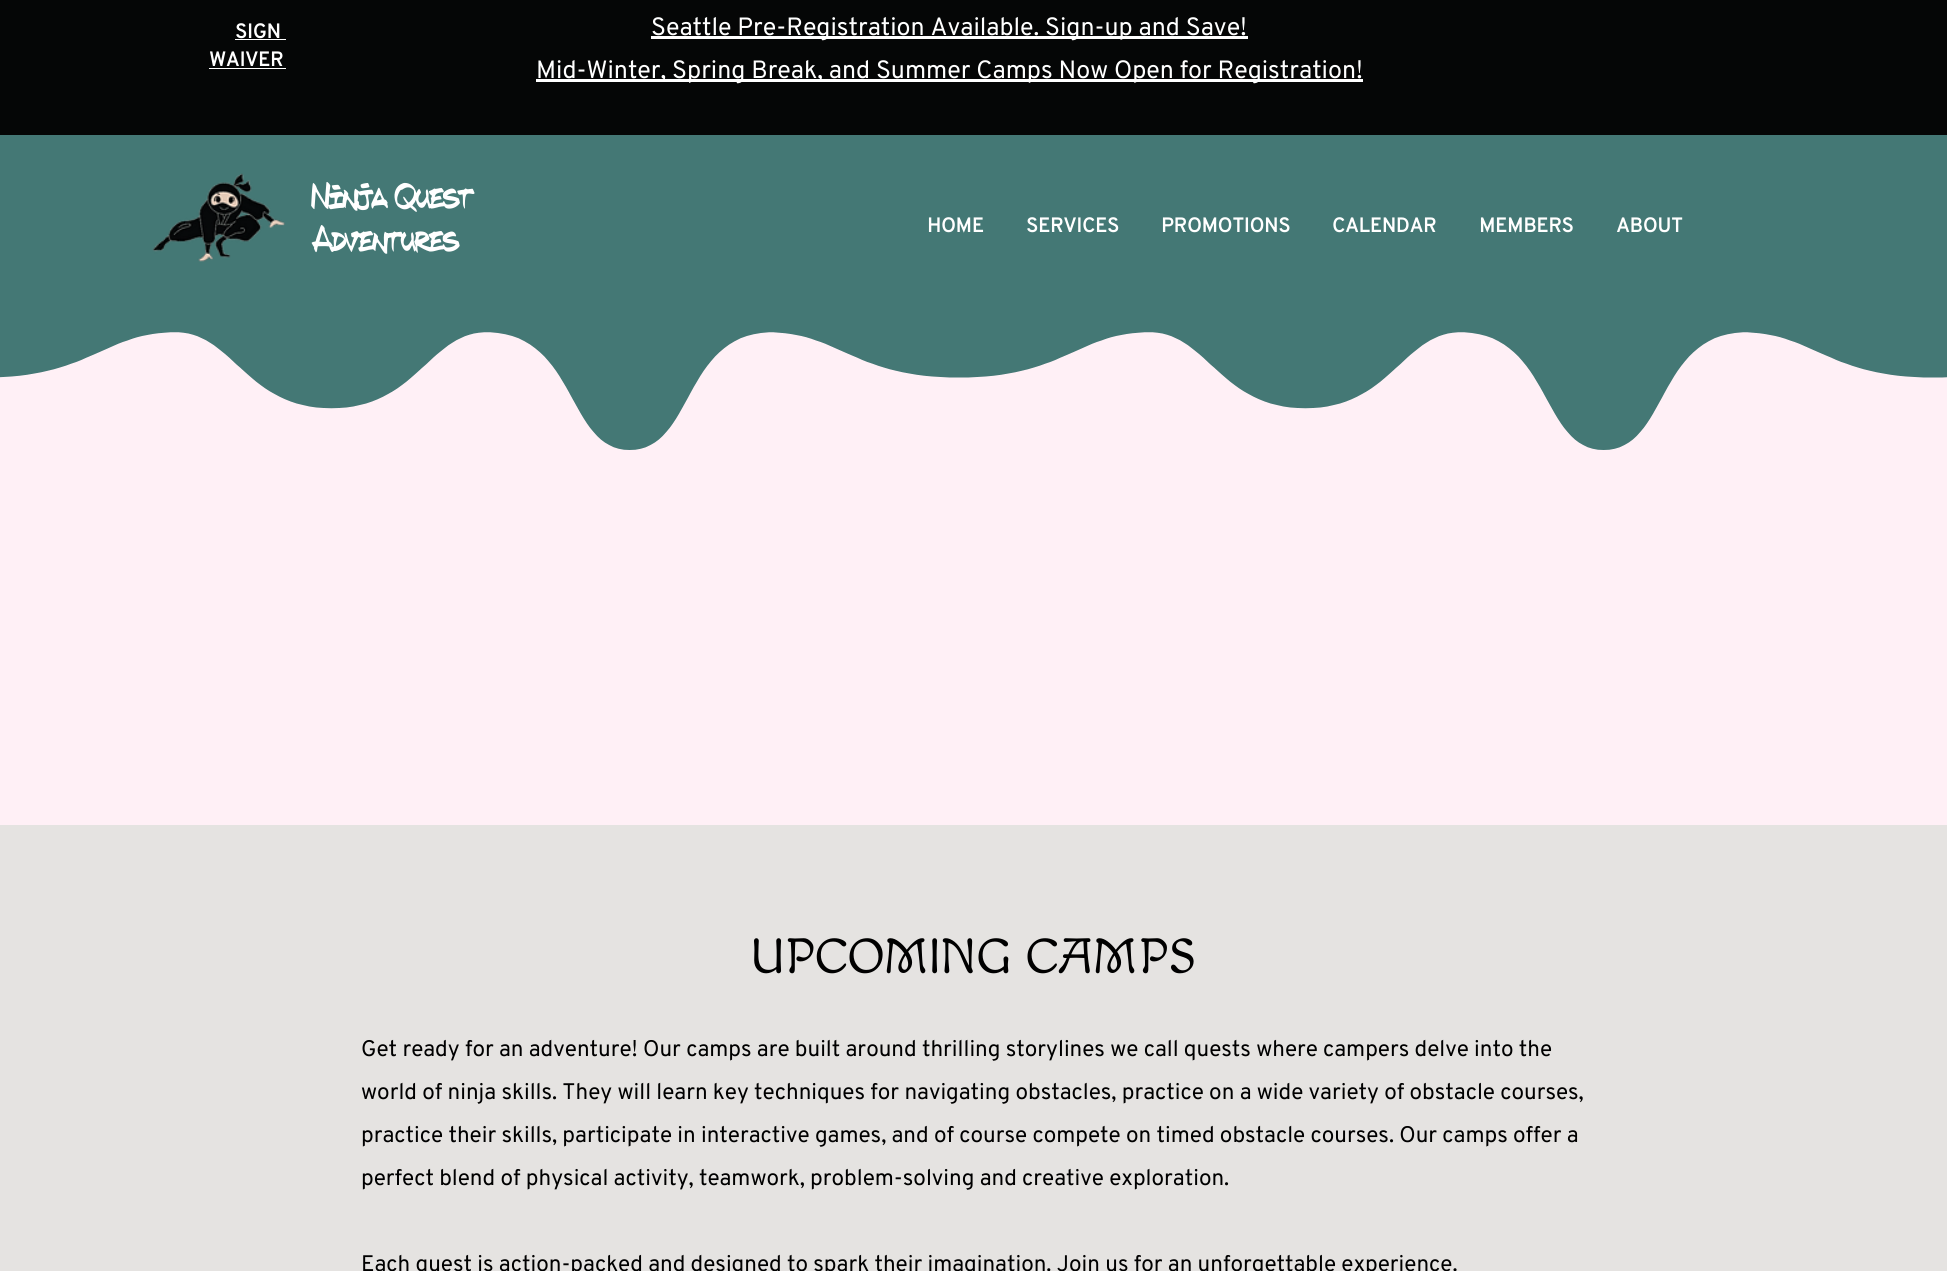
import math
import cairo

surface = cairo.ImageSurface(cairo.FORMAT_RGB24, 1947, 1271)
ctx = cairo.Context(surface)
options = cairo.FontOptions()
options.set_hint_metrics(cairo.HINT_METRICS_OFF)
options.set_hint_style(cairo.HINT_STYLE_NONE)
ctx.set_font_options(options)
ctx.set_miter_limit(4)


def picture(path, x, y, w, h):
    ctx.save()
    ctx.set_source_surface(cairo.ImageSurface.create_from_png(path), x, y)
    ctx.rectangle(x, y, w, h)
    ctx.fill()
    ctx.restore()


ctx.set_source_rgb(1, 0.941, 0.961)
ctx.paint()
ctx.set_source_rgb(0.02, 0.024, 0.024)
ctx.rectangle(0, 0, 1947, 135)
ctx.fill()
ctx.select_font_face("Overpass", cairo.FONT_SLANT_NORMAL, cairo.FONT_WEIGHT_BOLD)
ctx.set_font_size(20)
ctx.set_source_rgb(1, 1, 1)
ctx.move_to(235, 38)
ctx.show_text("SIGN")
ctx.rectangle(235, 39, 51, 1)
ctx.fill()
ctx.move_to(209, 66)
ctx.show_text("WAIVER")
ctx.rectangle(209, 68, 77, 1)
ctx.fill()
ctx.rectangle(651, 36, 597, 3)
ctx.fill()
ctx.select_font_face("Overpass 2")
ctx.set_font_size(25)
ctx.move_to(651, 35)
ctx.show_text("Seattle Pre-Registration Available. Sign-up and Save!")
ctx.rectangle(536, 79, 827, 3)
ctx.fill()
ctx.move_to(536, 78)
ctx.show_text("Mid-Winter, Spring Break, and Summer Camps Now Open for Registration!")
ctx.set_source_rgb(0.267, 0.471, 0.459)
ctx.rectangle(0, 135, 1947, 190)
ctx.fill()
picture("img1.png", 152, 173, 133, 89)
ctx.select_font_face("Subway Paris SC")
ctx.set_font_size(37.5)
ctx.set_source_rgb(1, 1, 1)
ctx.move_to(312, 208)
ctx.show_text("Ninja Quest")
ctx.move_to(312, 251)
ctx.show_text("Adventures")
ctx.select_font_face("Overpass 2", cairo.FONT_SLANT_NORMAL, cairo.FONT_WEIGHT_BOLD)
ctx.set_font_size(20)
ctx.move_to(927, 232)
ctx.show_text("HOME")
ctx.move_to(1026, 232)
ctx.show_text("SERVICES")
ctx.move_to(1161, 232)
ctx.show_text("PROMOTIONS")
ctx.move_to(1332, 232)
ctx.show_text("CALENDAR")
ctx.move_to(1479, 232)
ctx.show_text("MEMBERS")
ctx.move_to(1616, 232)
ctx.show_text("ABOUT")
picture("img2.png", 0, 325, 1947, 125)
ctx.set_source_rgb(0.898, 0.89, 0.882)
ctx.rectangle(0, 825, 1947, 446)
ctx.fill()
ctx.select_font_face("Macondo")
ctx.set_font_size(50)
ctx.set_source_rgb(0, 0, 0)
ctx.move_to(751, 973)
ctx.show_text("UPCOMING CAMPS")
ctx.select_font_face("Overpass")
ctx.set_font_size(22.5)
ctx.move_to(361, 1056)
ctx.show_text("Get ready for an adventure! Our camps are built around thrilling storylines we call quests where")
ctx.select_font_face("Overpass 2")
ctx.move_to(1323, 1056)
ctx.show_text("campers delve into the")
ctx.move_to(361, 1099)
ctx.show_text("world of ninja skills. They will learn key techniques for navigating obstacles, practice on a wide variety of obstacle courses,")
ctx.move_to(361, 1142)
ctx.show_text("practice their skills, participate in interactive games, and of course compete on timed obstacle courses. Our camps offer a")
ctx.move_to(361, 1185)
ctx.show_text("perfect blend of physical activity, teamwork, problem-solving and creative exploration.")
ctx.select_font_face("Overpass")
ctx.move_to(361, 1271)
ctx.show_text("Each quest is action-packed and designed to spark their imagination. Join us for an unforgettable experience.")
surface.write_to_png("page.png")
